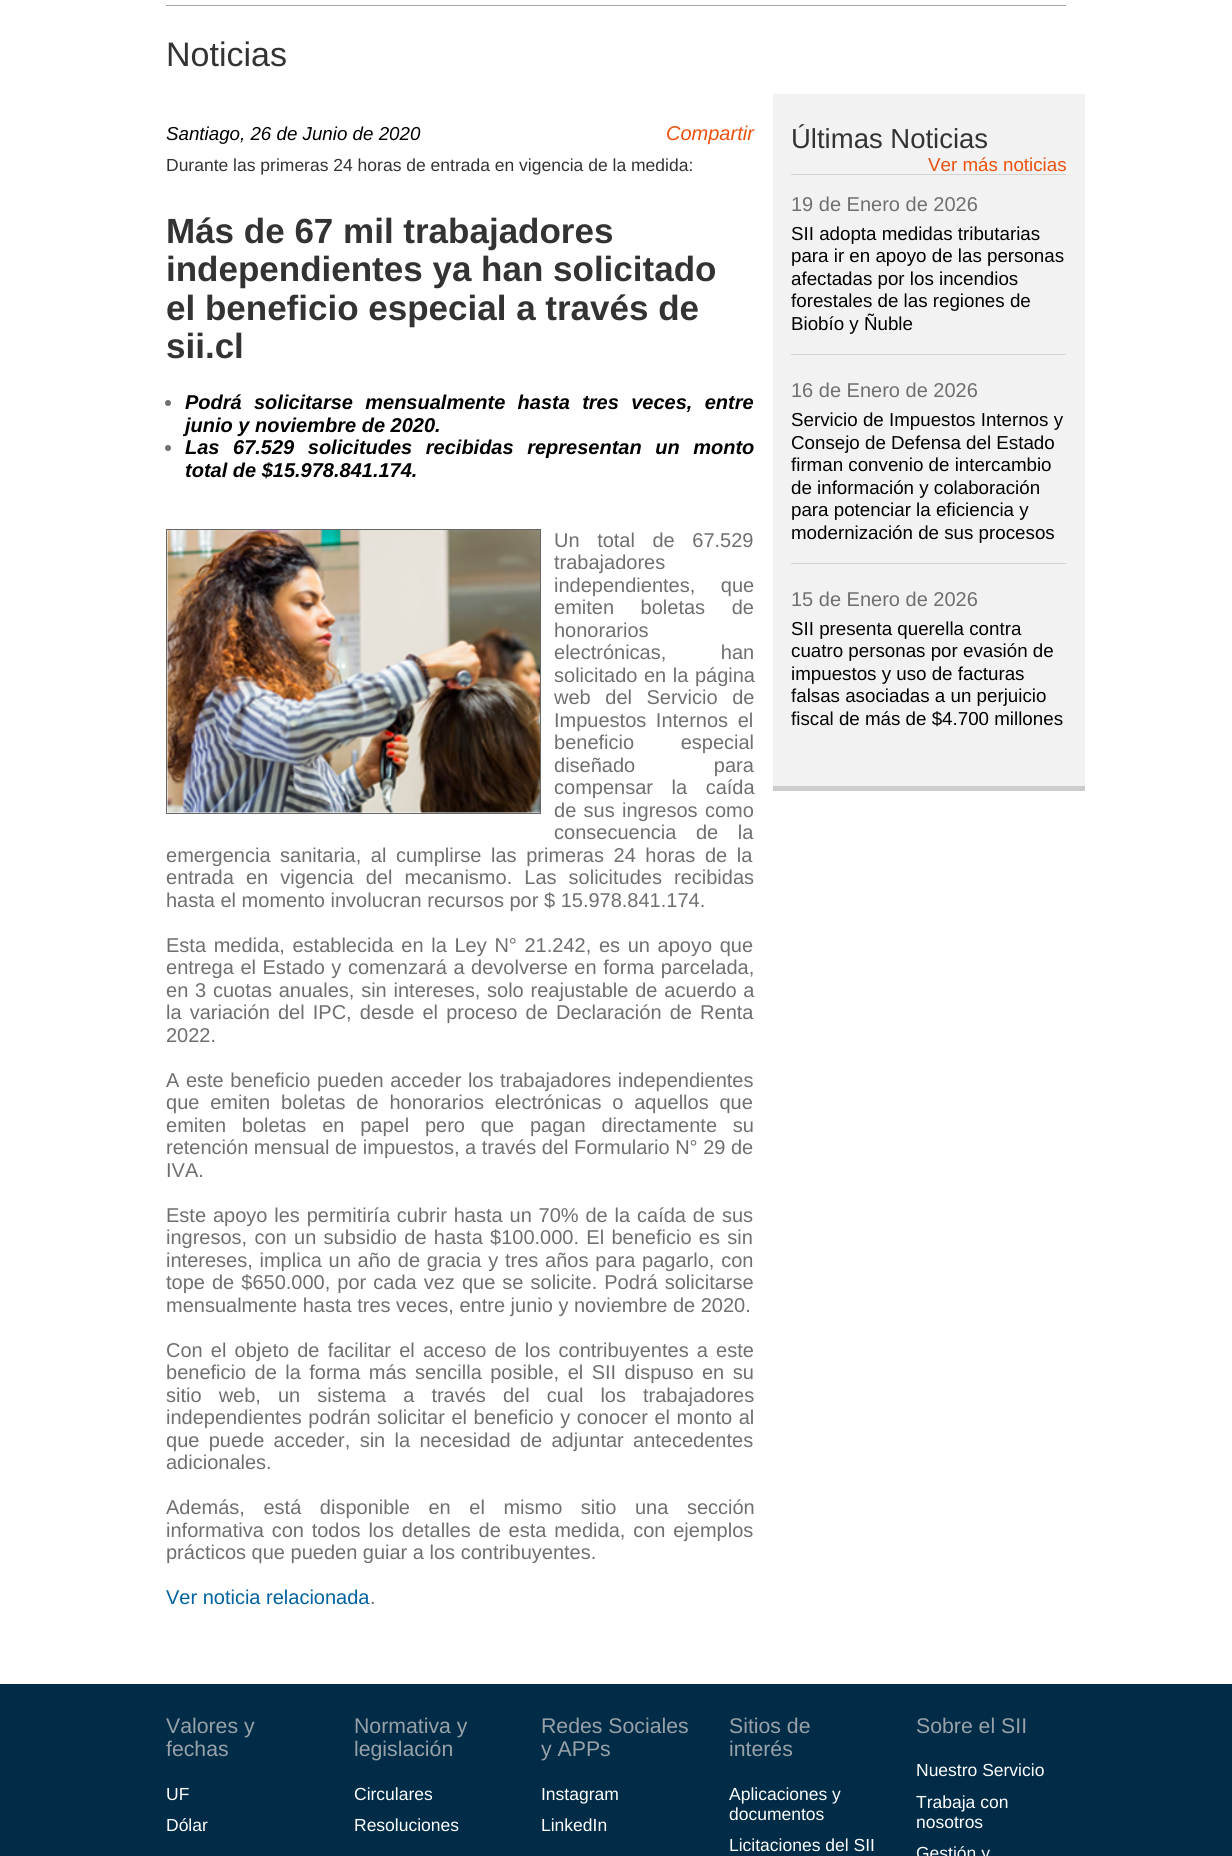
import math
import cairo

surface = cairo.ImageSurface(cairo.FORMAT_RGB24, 1232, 1856)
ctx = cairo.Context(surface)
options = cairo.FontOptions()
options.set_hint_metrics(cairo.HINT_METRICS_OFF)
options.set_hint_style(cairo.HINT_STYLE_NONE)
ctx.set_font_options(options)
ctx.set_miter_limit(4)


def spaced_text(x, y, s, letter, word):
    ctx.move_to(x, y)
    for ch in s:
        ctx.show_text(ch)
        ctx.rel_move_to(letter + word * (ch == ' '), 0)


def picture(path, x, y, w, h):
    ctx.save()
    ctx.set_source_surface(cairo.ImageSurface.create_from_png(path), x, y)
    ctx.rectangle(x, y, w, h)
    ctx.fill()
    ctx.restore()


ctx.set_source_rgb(1, 1, 1)
ctx.paint()
ctx.set_source_rgb(0.655, 0.655, 0.655)
ctx.rectangle(166, 5, 900, 1)
ctx.fill()
ctx.select_font_face("Liberation Sans")
ctx.set_font_size(34)
ctx.set_source_rgb(0.2, 0.2, 0.2)
ctx.move_to(166, 66)
ctx.show_text("Noticias")
ctx.select_font_face("Liberation Sans", cairo.FONT_SLANT_ITALIC)
ctx.set_font_size(18.75)
ctx.set_source_rgb(0, 0, 0)
ctx.move_to(166, 140)
ctx.show_text("Santiago, 26 de Junio de 2020")
ctx.set_font_size(20)
ctx.set_source_rgb(0.918, 0.318, 0.051)
ctx.move_to(666, 140)
ctx.show_text("Compartir")
ctx.select_font_face("Liberation Sans")
ctx.set_font_size(17.5)
ctx.set_source_rgb(0.2, 0.2, 0.2)
ctx.move_to(166, 171)
ctx.show_text("Durante las primeras 24 horas de entrada en vigencia de la medida:")
ctx.select_font_face("Liberation Sans", cairo.FONT_SLANT_NORMAL, cairo.FONT_WEIGHT_BOLD)
ctx.set_font_size(35)
ctx.move_to(166, 243)
ctx.show_text("Más de 67 mil trabajadores")
ctx.move_to(166, 281)
ctx.show_text("independientes ya han solicitado")
ctx.move_to(166, 320)
ctx.show_text("el beneficio especial a través de")
ctx.move_to(166, 358)
ctx.show_text("sii.cl")
ctx.set_source_rgb(0.439, 0.435, 0.435)
ctx.new_path()
ctx.arc(168, 403, 3, 0, 2 * math.pi)
ctx.fill()
ctx.select_font_face("Liberation Sans", cairo.FONT_SLANT_ITALIC, cairo.FONT_WEIGHT_BOLD)
ctx.set_font_size(20)
ctx.set_source_rgb(0, 0, 0)
spaced_text(185, 409, "Podrá solicitarse mensualmente hasta tres veces, entre", 0, 6.75)
ctx.move_to(185, 432)
ctx.show_text("junio y noviembre de 2020.")
ctx.set_source_rgb(0.439, 0.435, 0.435)
ctx.new_path()
ctx.arc(168, 448, 3, 0, 2 * math.pi)
ctx.fill()
ctx.set_source_rgb(0, 0, 0)
spaced_text(185, 454, "Las 67.529 solicitudes recibidas representan un monto", 0, 8)
ctx.move_to(185, 477)
ctx.show_text("total de $15.978.841.174.")
ctx.rectangle(166.5, 529.5, 374, 284)
ctx.set_source_rgb(0.4, 0.4, 0.4)
ctx.set_line_width(1)
ctx.stroke()
picture("img1.png", 167, 530, 373, 283)
ctx.select_font_face("Liberation Sans")
ctx.set_source_rgb(0.439, 0.435, 0.435)
spaced_text(554, 547, "Un total de 67.529", 0, 12)
ctx.move_to(554, 569)
ctx.show_text("trabajadores")
spaced_text(554, 592, "independientes, que", 0, 20)
spaced_text(554, 614, "emiten boletas de", 0, 21)
ctx.move_to(554, 637)
ctx.show_text("honorarios")
spaced_text(554, 659, "electrónicas, han", 0, 49)
spaced_text(554, 682, "solicitado en la página", 0, 1)
spaced_text(554, 704, "web del Servicio de", 0, 9)
spaced_text(554, 727, "Impuestos Internos el", 0, 4)
spaced_text(554, 749, "beneficio especial", 0, 41)
spaced_text(554, 772, "diseñado para", 0, 73)
spaced_text(554, 794, "compensar la caída", 0, 13)
spaced_text(554, 817, "de sus ingresos como", 0, 1.75)
spaced_text(554, 839, "consecuencia de la", 0, 14)
spaced_text(166, 862, "emergencia sanitaria, al cumplirse las primeras 24 horas de la", 0, 4)
spaced_text(166, 884, "entrada en vigencia del mecanismo. Las solicitudes recibidas", 0, 6.5)
ctx.move_to(166, 907)
ctx.show_text("hasta el momento involucran recursos por $ 15.978.841.174.")
spaced_text(166, 952, "Esta medida, establecida en la Ley N° 21.242, es un apoyo que", 0, 2.1)
spaced_text(166, 974, "entrega el Estado y comenzará a devolverse en forma parcelada,", 0, 1)
spaced_text(166, 997, "en 3 cuotas anuales, sin intereses, solo reajustable de acuerdo a", 0, 1.25)
spaced_text(166, 1019, "la variación del IPC, desde el proceso de Declaración de Renta", 0, 2.6)
ctx.move_to(166, 1042)
ctx.show_text("2022.")
spaced_text(166, 1087, "A este beneficio pueden acceder los trabajadores independientes", 0, 1)
spaced_text(166, 1109, "que emiten boletas de honorarios electrónicas o aquellos que", 0, 5.25)
spaced_text(166, 1132, "emiten boletas en papel pero que pagan directamente su", 0, 10.25)
ctx.move_to(166, 1154)
ctx.show_text("retención mensual de impuestos, a través del Formulario N° 29 de")
ctx.move_to(166, 1177)
ctx.show_text("IVA.")
spaced_text(166, 1222, "Este apoyo les permitiría cubrir hasta un 70% de la caída de sus", 0, 1.3)
spaced_text(166, 1244, "ingresos, con un subsidio de hasta $100.000. El beneficio es sin", 0, 1.75)
spaced_text(166, 1267, "intereses, implica un año de gracia y tres años para pagarlo, con", 0, 1.25)
spaced_text(166, 1289, "tope de $650.000, por cada vez que se solicite. Podrá solicitarse", 0, 1.5)
ctx.move_to(166, 1312)
ctx.show_text("mensualmente hasta tres veces, entre junio y noviembre de 2020.")
spaced_text(166, 1357, "Con el objeto de facilitar el acceso de los contribuyentes a este", 0, 2.6)
spaced_text(166, 1379, "beneficio de la forma más sencilla posible, el SII dispuso en su", 0, 2.9)
spaced_text(166, 1402, "sitio web, un sistema a través del cual los trabajadores", 0, 11.5)
spaced_text(166, 1424, "independientes podrán solicitar el beneficio y conocer el monto al", 0, 1)
spaced_text(166, 1447, "que puede acceder, sin la necesidad de adjuntar antecedentes", 0, 3.75)
ctx.move_to(166, 1469)
ctx.show_text("adicionales.")
spaced_text(166, 1514, "Además, está disponible en el mismo sitio una sección", 0, 13)
spaced_text(166, 1537, "informativa con todos los detalles de esta medida, con ejemplos", 0, 2.25)
ctx.move_to(166, 1559)
ctx.show_text("prácticos que pueden guiar a los contribuyentes.")
ctx.set_source_rgb(0, 0.38, 0.627)
ctx.move_to(166, 1604)
ctx.show_text("Ver noticia relacionada")
ctx.set_source_rgb(0.439, 0.435, 0.435)
ctx.move_to(370, 1604)
ctx.show_text(".")
ctx.set_source_rgb(0.949, 0.949, 0.949)
ctx.rectangle(773, 94, 312, 692)
ctx.fill()
ctx.set_source_rgb(0.8, 0.8, 0.8)
ctx.rectangle(773, 786, 312, 5)
ctx.fill()
ctx.set_font_size(27.5)
ctx.set_source_rgb(0.2, 0.2, 0.2)
ctx.move_to(791, 148)
ctx.show_text("Últimas Noticias")
ctx.set_font_size(18.75)
ctx.set_source_rgb(0.918, 0.318, 0.051)
ctx.move_to(928, 171)
ctx.show_text("Ver más noticias")
ctx.set_source_rgb(0.827, 0.827, 0.827)
ctx.rectangle(791, 174, 275, 1)
ctx.fill()
ctx.rectangle(791, 354, 275, 1)
ctx.fill()
ctx.set_font_size(20)
ctx.set_source_rgb(0.439, 0.435, 0.435)
ctx.move_to(791, 211)
ctx.show_text("19 de Enero de 2026")
ctx.set_font_size(18.75)
ctx.set_source_rgb(0, 0, 0)
ctx.move_to(791, 240)
ctx.show_text("SII adopta medidas tributarias")
ctx.move_to(791, 262)
ctx.show_text("para ir en apoyo de las personas")
ctx.move_to(791, 285)
ctx.show_text("afectadas por los incendios")
ctx.move_to(791, 307)
ctx.show_text("forestales de las regiones de")
ctx.move_to(791, 330)
ctx.show_text("Biobío y Ñuble")
ctx.set_source_rgb(0.827, 0.827, 0.827)
ctx.rectangle(791, 563, 275, 1)
ctx.fill()
ctx.set_font_size(20)
ctx.set_source_rgb(0.439, 0.435, 0.435)
ctx.move_to(791, 397)
ctx.show_text("16 de Enero de 2026")
ctx.set_font_size(18.75)
ctx.set_source_rgb(0, 0, 0)
ctx.move_to(791, 426)
ctx.show_text("Servicio de Impuestos Internos y")
ctx.move_to(791, 449)
ctx.show_text("Consejo de Defensa del Estado")
ctx.move_to(791, 471)
ctx.show_text("firman convenio de intercambio")
ctx.move_to(791, 494)
ctx.show_text("de información y colaboración")
ctx.move_to(791, 516)
ctx.show_text("para potenciar la eficiencia y")
ctx.move_to(791, 539)
ctx.show_text("modernización de sus procesos")
ctx.set_font_size(20)
ctx.set_source_rgb(0.439, 0.435, 0.435)
ctx.move_to(791, 606)
ctx.show_text("15 de Enero de 2026")
ctx.set_font_size(18.75)
ctx.set_source_rgb(0, 0, 0)
ctx.move_to(791, 635)
ctx.show_text("SII presenta querella contra")
ctx.move_to(791, 657)
ctx.show_text("cuatro personas por evasión de")
ctx.move_to(791, 680)
ctx.show_text("impuestos y uso de facturas")
ctx.move_to(791, 702)
ctx.show_text("falsas asociadas a un perjuicio")
ctx.move_to(791, 725)
ctx.show_text("fiscal de más de $4.700 millones")
ctx.set_source_rgb(0, 0.173, 0.282)
ctx.rectangle(0, 1684, 1232, 172)
ctx.fill()
ctx.set_font_size(21.25)
ctx.set_source_rgb(0.596, 0.631, 0.659)
ctx.move_to(166, 1733)
ctx.show_text("Valores y")
ctx.move_to(166, 1756)
ctx.show_text("fechas")
ctx.set_font_size(17.5)
ctx.set_source_rgb(1, 1, 1)
ctx.move_to(166, 1800)
ctx.show_text("UF")
ctx.move_to(166, 1831)
ctx.show_text("Dólar")
ctx.set_font_size(21.25)
ctx.set_source_rgb(0.596, 0.631, 0.659)
ctx.move_to(354, 1733)
ctx.show_text("Normativa y")
ctx.move_to(354, 1756)
ctx.show_text("legislación")
ctx.set_font_size(17.5)
ctx.set_source_rgb(1, 1, 1)
ctx.move_to(354, 1800)
ctx.show_text("Circulares")
ctx.move_to(354, 1831)
ctx.show_text("Resoluciones")
ctx.set_font_size(21.25)
ctx.set_source_rgb(0.596, 0.631, 0.659)
ctx.move_to(541, 1733)
ctx.show_text("Redes Sociales")
ctx.move_to(541, 1756)
ctx.show_text("y APPs")
ctx.set_font_size(17.5)
ctx.set_source_rgb(1, 1, 1)
ctx.move_to(541, 1800)
ctx.show_text("Instagram")
ctx.move_to(541, 1831)
ctx.show_text("LinkedIn")
ctx.set_font_size(21.25)
ctx.set_source_rgb(0.596, 0.631, 0.659)
ctx.move_to(729, 1733)
ctx.show_text("Sitios de")
ctx.move_to(729, 1756)
ctx.show_text("interés")
ctx.set_font_size(17.5)
ctx.set_source_rgb(1, 1, 1)
ctx.move_to(729, 1800)
ctx.show_text("Aplicaciones y")
ctx.move_to(729, 1820)
ctx.show_text("documentos")
ctx.move_to(729, 1851)
ctx.show_text("Licitaciones del SII")
ctx.set_font_size(21.25)
ctx.set_source_rgb(0.596, 0.631, 0.659)
ctx.move_to(916, 1733)
ctx.show_text("Sobre el SII")
ctx.set_font_size(17.5)
ctx.set_source_rgb(1, 1, 1)
ctx.move_to(916, 1776)
ctx.show_text("Nuestro Servicio")
ctx.move_to(916, 1808)
ctx.show_text("Trabaja con")
ctx.move_to(916, 1828)
ctx.show_text("nosotros")
ctx.move_to(916, 1859)
ctx.show_text("Gestión y")
surface.write_to_png("page.png")
